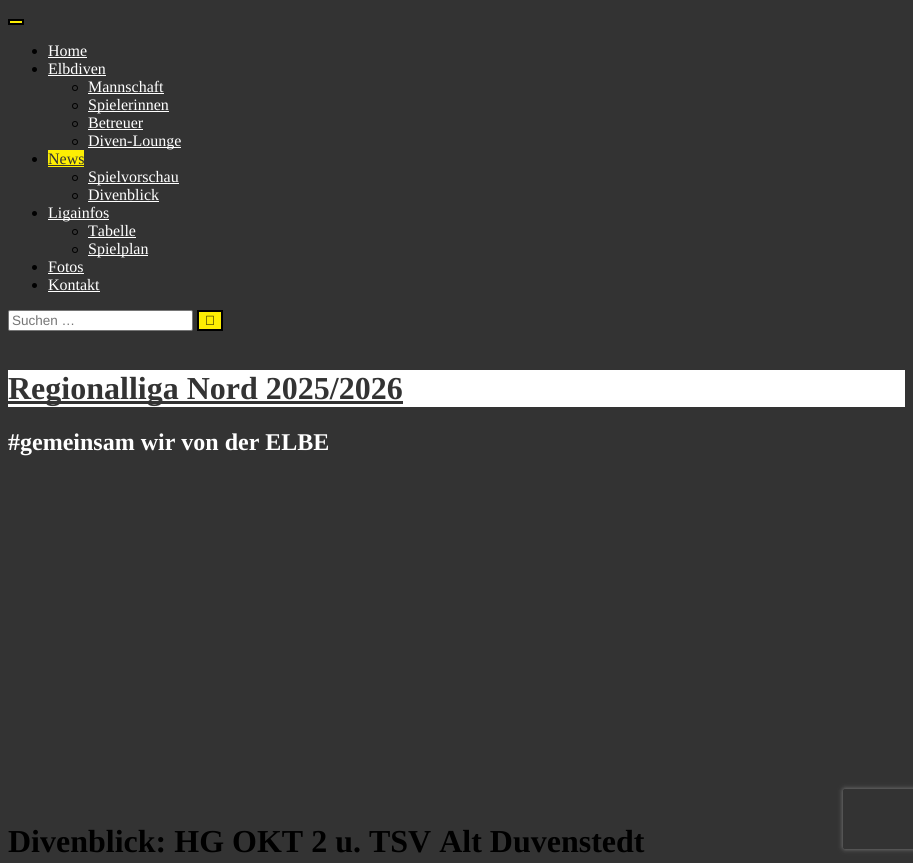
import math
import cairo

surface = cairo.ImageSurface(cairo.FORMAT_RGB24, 913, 863)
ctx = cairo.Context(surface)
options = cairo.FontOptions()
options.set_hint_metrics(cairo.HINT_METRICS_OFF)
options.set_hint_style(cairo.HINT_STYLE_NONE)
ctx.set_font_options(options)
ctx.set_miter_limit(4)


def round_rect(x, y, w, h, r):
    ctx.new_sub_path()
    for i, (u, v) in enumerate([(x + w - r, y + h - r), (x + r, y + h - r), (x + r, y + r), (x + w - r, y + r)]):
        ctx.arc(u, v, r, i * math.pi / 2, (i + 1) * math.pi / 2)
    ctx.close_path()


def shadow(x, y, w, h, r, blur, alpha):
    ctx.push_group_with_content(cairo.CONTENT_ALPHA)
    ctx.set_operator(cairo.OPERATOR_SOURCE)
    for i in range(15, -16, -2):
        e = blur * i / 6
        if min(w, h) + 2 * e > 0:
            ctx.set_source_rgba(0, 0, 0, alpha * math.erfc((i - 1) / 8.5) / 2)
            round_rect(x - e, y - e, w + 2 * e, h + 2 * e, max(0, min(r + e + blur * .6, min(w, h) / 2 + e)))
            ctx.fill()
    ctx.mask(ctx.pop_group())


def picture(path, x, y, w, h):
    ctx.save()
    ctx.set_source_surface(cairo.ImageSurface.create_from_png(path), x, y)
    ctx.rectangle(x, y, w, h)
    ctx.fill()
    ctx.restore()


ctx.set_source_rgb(0.2, 0.2, 0.2)
ctx.paint()
ctx.set_source_rgb(0.992, 0.933, 0.012)
ctx.rectangle(9, 20, 14, 4)
ctx.fill_preserve()
ctx.set_source_rgb(0, 0, 0)
ctx.stroke()
ctx.arc(34.5, 51.5, 2.5, 0, 2 * math.pi)
ctx.fill()
ctx.select_font_face("Liberation Serif")
ctx.set_font_size(16)
ctx.set_source_rgb(1, 1, 1)
ctx.move_to(48, 56)
ctx.show_text("Home")
ctx.rectangle(48, 57, 39, 1)
ctx.fill()
ctx.set_source_rgb(0, 0, 0)
ctx.arc(34.5, 69.5, 2.5, 0, 2 * math.pi)
ctx.fill()
ctx.set_source_rgb(1, 1, 1)
ctx.move_to(48, 74)
ctx.show_text("Elbdiven")
ctx.rectangle(48, 75, 58, 1)
ctx.fill()
ctx.arc(75, 88, 2.5, 0, 2 * math.pi)
ctx.set_source_rgb(0, 0, 0)
ctx.set_line_width(1)
ctx.stroke()
ctx.set_source_rgb(1, 1, 1)
ctx.move_to(88, 92)
ctx.show_text("Mannschaft")
ctx.rectangle(88, 93, 76, 1)
ctx.fill()
ctx.arc(75, 106, 2.5, 0, 2 * math.pi)
ctx.set_source_rgb(0, 0, 0)
ctx.stroke()
ctx.set_source_rgb(1, 1, 1)
ctx.rectangle(88, 111, 81, 1)
ctx.fill()
ctx.move_to(88, 110)
ctx.show_text("Spielerinnen")
ctx.new_path()
ctx.arc(75, 124, 2.5, 0, 2 * math.pi)
ctx.set_source_rgb(0, 0, 0)
ctx.stroke()
ctx.set_source_rgb(1, 1, 1)
ctx.move_to(88, 128)
ctx.show_text("Betreuer")
ctx.rectangle(88, 129, 55, 1)
ctx.fill()
ctx.arc(75, 142, 2.5, 0, 2 * math.pi)
ctx.set_source_rgb(0, 0, 0)
ctx.stroke()
ctx.set_source_rgb(1, 1, 1)
ctx.rectangle(88, 147, 93, 1)
ctx.fill()
ctx.move_to(88, 146)
ctx.show_text("Diven-Lounge")
ctx.set_source_rgb(0, 0, 0)
ctx.new_path()
ctx.arc(34.5, 159.5, 2.5, 0, 2 * math.pi)
ctx.fill()
ctx.set_source_rgb(0.992, 0.933, 0.012)
ctx.rectangle(48, 150, 36, 17)
ctx.fill()
ctx.set_source_rgb(0.2, 0.2, 0.2)
ctx.move_to(48, 164)
ctx.show_text("News")
ctx.rectangle(48, 165, 36, 1)
ctx.fill()
ctx.arc(75, 178, 2.5, 0, 2 * math.pi)
ctx.set_source_rgb(0, 0, 0)
ctx.stroke()
ctx.set_source_rgb(1, 1, 1)
ctx.rectangle(88, 183, 91, 1)
ctx.fill()
ctx.move_to(88, 182)
ctx.show_text("Spielvorschau")
ctx.new_path()
ctx.arc(75, 196, 2.5, 0, 2 * math.pi)
ctx.set_source_rgb(0, 0, 0)
ctx.stroke()
ctx.set_source_rgb(1, 1, 1)
ctx.move_to(88, 200)
ctx.show_text("Divenblick")
ctx.rectangle(88, 201, 71, 1)
ctx.fill()
ctx.set_source_rgb(0, 0, 0)
ctx.arc(34.5, 213.5, 2.5, 0, 2 * math.pi)
ctx.fill()
ctx.set_source_rgb(1, 1, 1)
ctx.rectangle(48, 219, 61, 1)
ctx.fill()
ctx.move_to(48, 218)
ctx.show_text("Ligainfos")
ctx.new_path()
ctx.arc(75, 232, 2.5, 0, 2 * math.pi)
ctx.set_source_rgb(0, 0, 0)
ctx.stroke()
ctx.set_source_rgb(1, 1, 1)
ctx.move_to(88, 236)
ctx.show_text("Tabelle")
ctx.rectangle(88, 237, 48, 1)
ctx.fill()
ctx.arc(75, 250, 2.5, 0, 2 * math.pi)
ctx.set_source_rgb(0, 0, 0)
ctx.stroke()
ctx.set_source_rgb(1, 1, 1)
ctx.rectangle(88, 255, 60, 1)
ctx.fill()
ctx.move_to(88, 254)
ctx.show_text("Spielplan")
ctx.set_source_rgb(0, 0, 0)
ctx.new_path()
ctx.arc(34.5, 267.5, 2.5, 0, 2 * math.pi)
ctx.fill()
ctx.set_source_rgb(1, 1, 1)
ctx.move_to(48, 272)
ctx.show_text("Fotos")
ctx.rectangle(48, 273, 36, 1)
ctx.fill()
ctx.set_source_rgb(0, 0, 0)
ctx.arc(34.5, 285.5, 2.5, 0, 2 * math.pi)
ctx.fill()
ctx.set_source_rgb(1, 1, 1)
ctx.move_to(48, 290)
ctx.show_text("Kontakt")
ctx.rectangle(48, 291, 52, 1)
ctx.fill()
round_rect(8.5, 310.5, 184, 20, 1.5)
ctx.fill_preserve()
ctx.set_source_rgb(0.463, 0.463, 0.463)
ctx.stroke()
ctx.select_font_face("Liberation Sans")
ctx.set_font_size(13.5)
ctx.set_source_rgb(0.459, 0.459, 0.459)
ctx.move_to(12, 325)
ctx.show_text("Suchen …")
ctx.set_source_rgb(0.992, 0.933, 0.012)
ctx.rectangle(198, 311, 24, 19)
ctx.fill_preserve()
ctx.set_source_rgb(0, 0, 0)
ctx.set_line_width(2)
ctx.stroke()
picture("img1.png", 206, 315, 8, 10)
ctx.set_source_rgb(1, 1, 1)
ctx.rectangle(8, 370, 897, 37)
ctx.fill()
ctx.set_source_rgb(0.2, 0.2, 0.2)
ctx.rectangle(8, 401, 395, 3)
ctx.fill()
ctx.select_font_face("Liberation Serif", cairo.FONT_SLANT_NORMAL, cairo.FONT_WEIGHT_BOLD)
ctx.set_font_size(32)
ctx.move_to(8, 399)
ctx.show_text("Regionalliga Nord 2025/2026")
ctx.set_font_size(24)
ctx.set_source_rgb(1, 1, 1)
ctx.move_to(8, 450)
ctx.show_text("#gemeinsam wir von der ELBE")
ctx.set_font_size(32)
ctx.set_source_rgb(0, 0, 0)
ctx.move_to(8, 852)
ctx.show_text("Divenblick: HG OKT 2 u. TSV Alt Duvenstedt")
ctx.save()
ctx.set_fill_rule(cairo.FILL_RULE_EVEN_ODD)
ctx.new_path()
ctx.move_to(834, 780)
ctx.line_to(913, 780)
ctx.line_to(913, 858)
ctx.line_to(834, 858)
ctx.close_path()
ctx.move_to(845, 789)
ctx.line_to(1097, 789)
ctx.curve_to(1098, 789, 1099, 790, 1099, 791)
ctx.line_to(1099, 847)
ctx.curve_to(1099, 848, 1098, 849, 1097, 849)
ctx.line_to(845, 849)
ctx.curve_to(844, 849, 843, 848, 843, 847)
ctx.line_to(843, 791)
ctx.curve_to(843, 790, 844, 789, 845, 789)
ctx.close_path()
ctx.clip()
ctx.set_source_rgb(0.502, 0.502, 0.502)
shadow(843, 789, 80, 60, 2, 2.5, 1)
ctx.restore()
surface.write_to_png("page.png")
